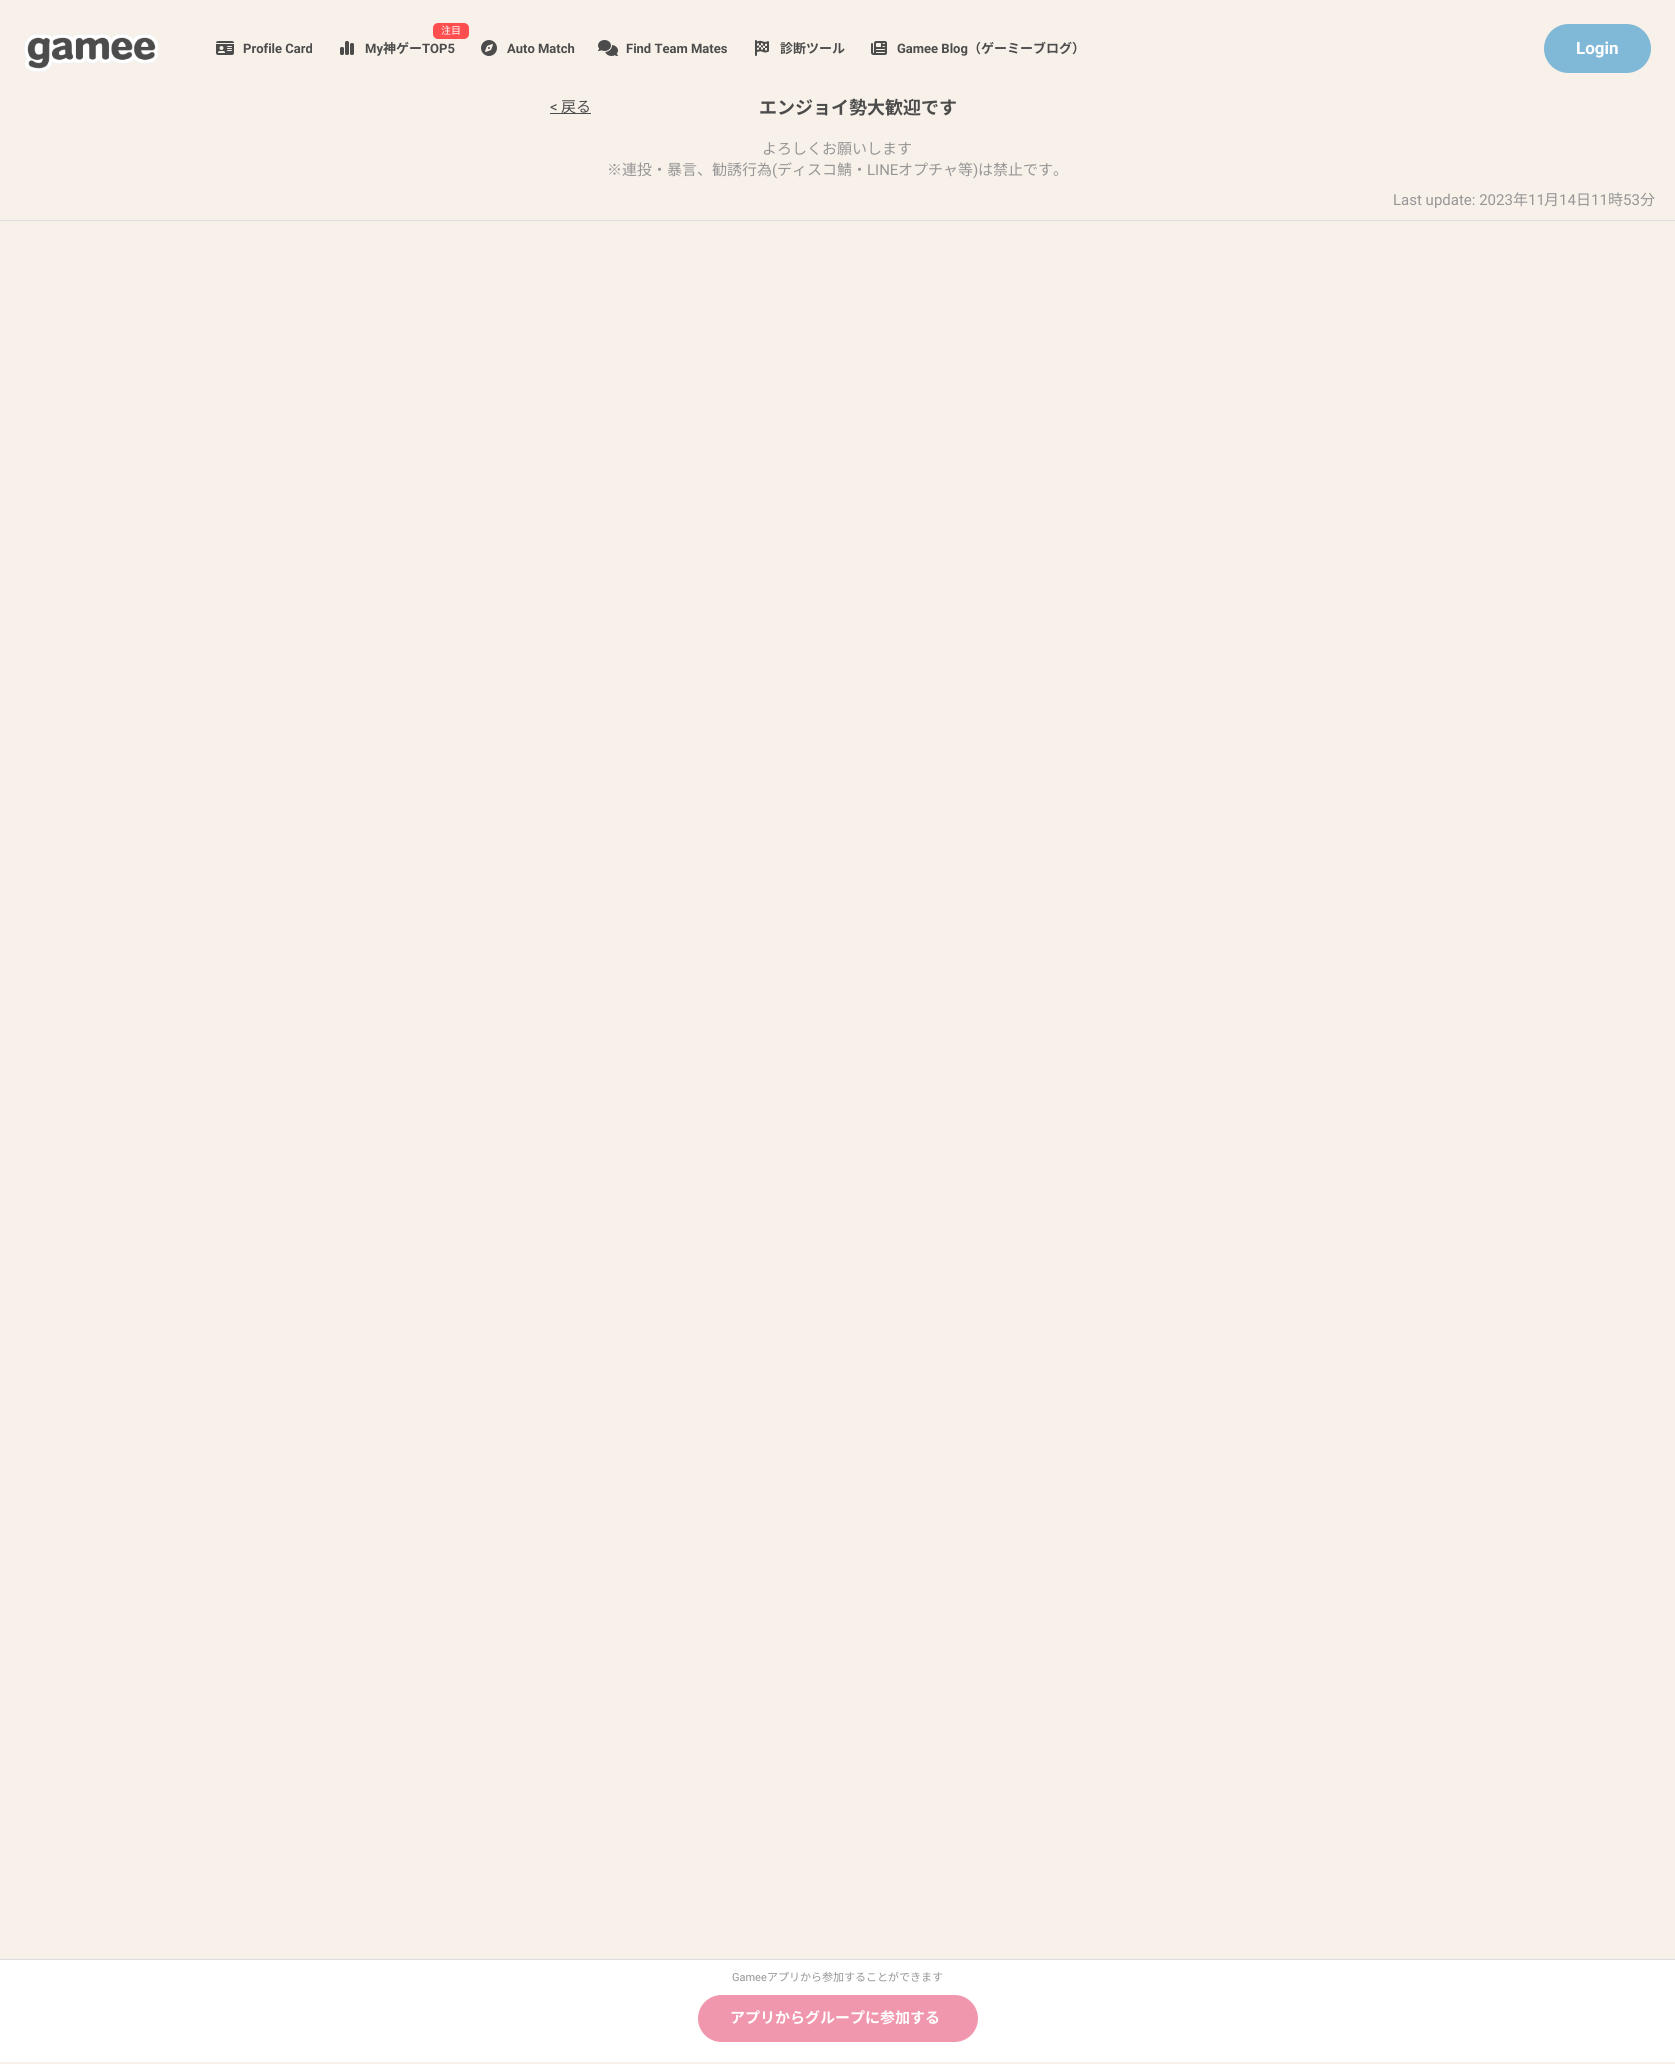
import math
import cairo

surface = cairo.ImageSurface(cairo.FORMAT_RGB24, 1675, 2064)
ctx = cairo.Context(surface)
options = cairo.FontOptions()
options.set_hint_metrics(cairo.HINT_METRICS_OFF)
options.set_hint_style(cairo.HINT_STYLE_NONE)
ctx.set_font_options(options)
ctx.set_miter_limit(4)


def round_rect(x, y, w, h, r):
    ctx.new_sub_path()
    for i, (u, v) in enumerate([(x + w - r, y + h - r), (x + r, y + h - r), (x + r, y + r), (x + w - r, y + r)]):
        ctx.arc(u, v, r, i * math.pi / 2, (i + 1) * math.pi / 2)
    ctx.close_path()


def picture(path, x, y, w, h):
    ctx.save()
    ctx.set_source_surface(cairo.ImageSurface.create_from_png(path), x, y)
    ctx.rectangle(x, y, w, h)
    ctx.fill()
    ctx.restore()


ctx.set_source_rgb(0.969, 0.945, 0.914)
ctx.paint()
picture("img1.png", 24, 34, 135, 38)
picture("img2.png", 216, 41, 18, 14)
ctx.select_font_face("Roboto", cairo.FONT_SLANT_NORMAL, cairo.FONT_WEIGHT_BOLD)
ctx.set_font_size(13)
ctx.set_source_rgb(0.298, 0.298, 0.298)
ctx.move_to(243, 53)
ctx.show_text("Profile Card")
ctx.set_source_rgb(1, 0.306, 0.306)
round_rect(433, 23, 36, 16, 5)
ctx.fill()
ctx.select_font_face("Noto Sans JP")
ctx.set_font_size(10)
ctx.set_source_rgb(1, 1, 1)
ctx.move_to(441, 34)
ctx.show_text("注目")
picture("img3.png", 340, 41, 14, 14)
ctx.select_font_face("Roboto", cairo.FONT_SLANT_NORMAL, cairo.FONT_WEIGHT_BOLD)
ctx.set_font_size(13)
ctx.set_source_rgb(0.298, 0.298, 0.298)
ctx.move_to(365, 53)
ctx.show_text("My")
ctx.select_font_face("Noto Sans JP", cairo.FONT_SLANT_NORMAL, cairo.FONT_WEIGHT_BOLD)
ctx.move_to(383, 53)
ctx.show_text("神ゲー")
ctx.select_font_face("Roboto", cairo.FONT_SLANT_NORMAL, cairo.FONT_WEIGHT_BOLD)
ctx.move_to(422, 53)
ctx.show_text("TOP5")
picture("img4.png", 481, 40, 16, 16)
ctx.move_to(507, 53)
ctx.show_text("Auto Match")
picture("img5.png", 598, 40, 20, 16)
ctx.move_to(626, 53)
ctx.show_text("Find Team Mates")
picture("img6.png", 755, 40, 14, 16)
ctx.select_font_face("Noto Sans JP", cairo.FONT_SLANT_NORMAL, cairo.FONT_WEIGHT_BOLD)
ctx.move_to(780, 53)
ctx.show_text("診断ツール")
picture("img7.png", 871, 41, 16, 14)
ctx.select_font_face("Roboto", cairo.FONT_SLANT_NORMAL, cairo.FONT_WEIGHT_BOLD)
ctx.move_to(897, 53)
ctx.show_text("Gamee Blog")
ctx.select_font_face("Noto Sans JP", cairo.FONT_SLANT_NORMAL, cairo.FONT_WEIGHT_BOLD)
ctx.move_to(968, 53)
ctx.show_text("（ゲーミーブログ）")
ctx.set_source_rgb(0.502, 0.722, 0.843)
round_rect(1544, 24, 107, 49, 24.5)
ctx.fill()
ctx.select_font_face("Roboto", cairo.FONT_SLANT_NORMAL, cairo.FONT_WEIGHT_BOLD)
ctx.set_font_size(17)
ctx.set_source_rgb(1, 1, 1)
ctx.move_to(1576, 54)
ctx.show_text("Login")
ctx.select_font_face("Roboto")
ctx.set_font_size(15)
ctx.set_source_rgb(0.298, 0.298, 0.298)
ctx.move_to(550, 112)
ctx.show_text("<")
ctx.rectangle(550, 113, 41, 1)
ctx.fill()
ctx.select_font_face("Noto Sans JP")
ctx.move_to(561, 112)
ctx.show_text("戻る")
ctx.select_font_face("Noto Sans JP", cairo.FONT_SLANT_NORMAL, cairo.FONT_WEIGHT_BOLD)
ctx.set_font_size(18)
ctx.move_to(759, 114)
ctx.show_text("エンジョイ勢大歓迎です")
ctx.select_font_face("Noto Sans JP")
ctx.set_font_size(15)
ctx.set_source_rgb(0.588, 0.588, 0.588)
ctx.move_to(762, 154)
ctx.show_text("よろしくお願いします")
ctx.move_to(607, 175)
ctx.show_text("※連投・暴言、勧誘行為")
ctx.select_font_face("Roboto")
ctx.move_to(772, 175)
ctx.show_text("(")
ctx.select_font_face("Noto Sans JP")
ctx.move_to(777, 175)
ctx.show_text("ディスコ鯖・")
ctx.select_font_face("Roboto")
ctx.move_to(867, 175)
ctx.show_text("LINE")
ctx.select_font_face("Noto Sans JP")
ctx.move_to(898, 175)
ctx.show_text("オプチャ等")
ctx.select_font_face("Roboto")
ctx.move_to(973, 175)
ctx.show_text(")")
ctx.select_font_face("Noto Sans JP")
ctx.move_to(978, 175)
ctx.show_text("は禁止です。")
ctx.select_font_face("Roboto")
ctx.move_to(1393, 205)
ctx.show_text("Last update: 2023")
ctx.select_font_face("Noto Sans JP")
ctx.move_to(1513, 205)
ctx.show_text("年")
ctx.select_font_face("Roboto")
ctx.move_to(1528, 205)
ctx.show_text("11")
ctx.select_font_face("Noto Sans JP")
ctx.move_to(1544, 205)
ctx.show_text("月")
ctx.select_font_face("Roboto")
ctx.move_to(1559, 205)
ctx.show_text("14")
ctx.select_font_face("Noto Sans JP")
ctx.move_to(1576, 205)
ctx.show_text("日")
ctx.select_font_face("Roboto")
ctx.move_to(1591, 205)
ctx.show_text("11")
ctx.select_font_face("Noto Sans JP")
ctx.move_to(1608, 205)
ctx.show_text("時")
ctx.select_font_face("Roboto")
ctx.move_to(1623, 205)
ctx.show_text("53")
ctx.select_font_face("Noto Sans JP")
ctx.move_to(1640, 205)
ctx.show_text("分")
ctx.set_source_rgb(0.863, 0.863, 0.863)
ctx.rectangle(0, 220, 1675, 1)
ctx.fill()
ctx.set_source_rgb(1, 1, 1)
ctx.rectangle(0, 1960, 1675, 102)
ctx.fill()
ctx.set_source_rgb(0.863, 0.863, 0.863)
ctx.rectangle(0, 1959, 1675, 1)
ctx.fill()
ctx.select_font_face("Roboto")
ctx.set_font_size(11)
ctx.set_source_rgb(0.588, 0.588, 0.588)
ctx.move_to(732, 1981)
ctx.show_text("Gamee")
ctx.select_font_face("Noto Sans JP")
ctx.move_to(767, 1981)
ctx.show_text("アプリから参加することができます")
ctx.set_source_rgb(0.945, 0.592, 0.678)
round_rect(698, 1995, 280, 47, 23.5)
ctx.fill()
ctx.select_font_face("Noto Sans JP", cairo.FONT_SLANT_NORMAL, cairo.FONT_WEIGHT_BOLD)
ctx.set_font_size(15)
ctx.set_source_rgb(1, 1, 1)
ctx.move_to(730, 2023)
ctx.show_text("アプリからグループに参加する")
surface.write_to_png("page.png")
